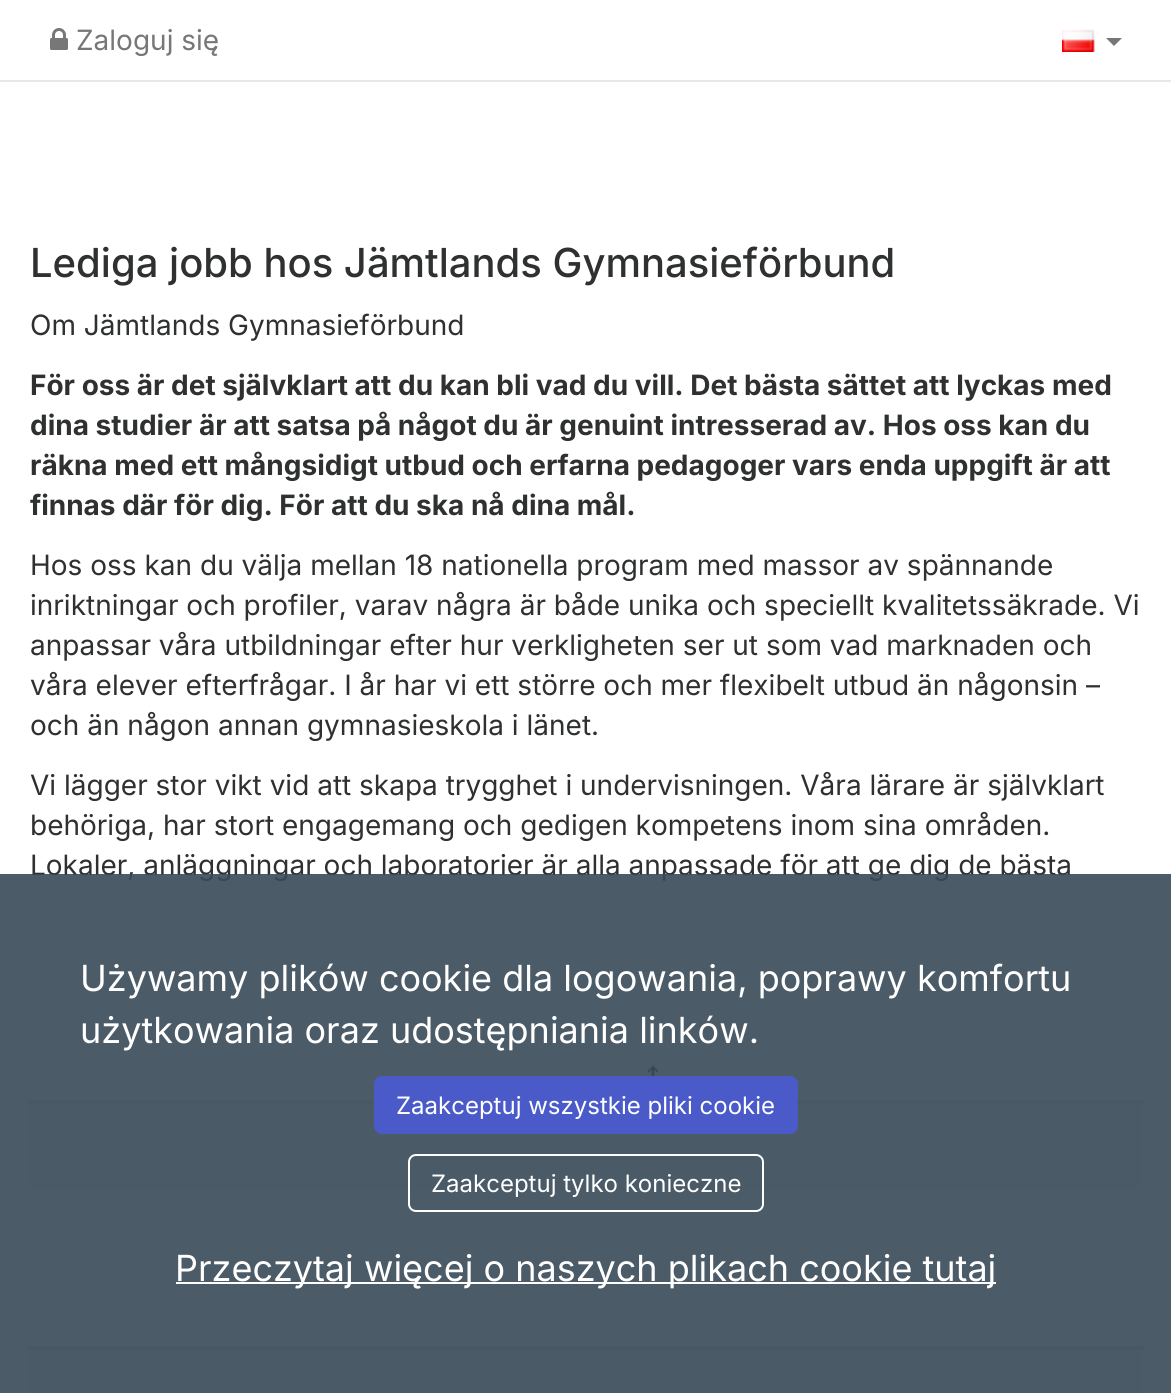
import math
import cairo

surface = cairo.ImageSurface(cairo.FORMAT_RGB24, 1171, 1393)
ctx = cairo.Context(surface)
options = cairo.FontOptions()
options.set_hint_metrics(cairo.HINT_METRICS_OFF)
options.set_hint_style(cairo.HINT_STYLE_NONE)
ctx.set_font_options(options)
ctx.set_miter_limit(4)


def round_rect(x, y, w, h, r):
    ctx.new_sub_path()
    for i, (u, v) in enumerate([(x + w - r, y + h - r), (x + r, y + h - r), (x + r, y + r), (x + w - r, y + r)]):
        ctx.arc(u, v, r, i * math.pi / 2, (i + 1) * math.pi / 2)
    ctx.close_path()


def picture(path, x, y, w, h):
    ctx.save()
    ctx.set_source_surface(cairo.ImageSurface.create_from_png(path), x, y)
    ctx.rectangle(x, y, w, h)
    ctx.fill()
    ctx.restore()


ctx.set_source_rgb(1, 1, 1)
ctx.paint()
ctx.set_source_rgb(0.906, 0.906, 0.906)
ctx.rectangle(0, 80, 1171, 2)
ctx.fill()
picture("img1.png", 50, 28, 18, 22)
ctx.select_font_face("Inter")
ctx.set_font_size(28)
ctx.set_source_rgb(0.467, 0.467, 0.467)
ctx.move_to(76, 50)
ctx.show_text("Zaloguj się")
picture("img2.png", 1062, 29, 33, 23)
ctx.new_path()
ctx.move_to(1106, 38)
ctx.line_to(1122, 38)
ctx.line_to(1114, 46)
ctx.close_path()
ctx.fill()
ctx.select_font_face("Inter Medium")
ctx.set_font_size(40)
ctx.set_source_rgb(0.184, 0.188, 0.188)
ctx.move_to(30, 277)
ctx.show_text("Lediga jobb hos Jämtlands Gymnasieförbund")
ctx.select_font_face("Inter")
ctx.set_font_size(28)
ctx.move_to(30, 335)
ctx.show_text("Om Jämtlands Gymnasieförbund")
ctx.select_font_face("Inter", cairo.FONT_SLANT_NORMAL, cairo.FONT_WEIGHT_BOLD)
ctx.move_to(30, 395)
ctx.show_text("För oss är det självklart att du kan bli vad du vill. Det bästa sättet att lyckas med")
ctx.move_to(30, 435)
ctx.show_text("dina studier är att satsa på något du är genuint intresserad av. Hos oss kan du")
ctx.move_to(30, 475)
ctx.show_text("räkna med ett mångsidigt utbud och erfarna pedagoger vars enda uppgift är att")
ctx.move_to(30, 515)
ctx.show_text("finnas där för dig. För att du ska nå dina mål.")
ctx.select_font_face("Inter")
ctx.move_to(30, 575)
ctx.show_text("Hos oss kan du välja mellan 18 nationella program med massor av spännande")
ctx.move_to(30, 615)
ctx.show_text("inriktningar och profiler, varav några är både unika och speciellt kvalitetssäkrade. Vi")
ctx.move_to(30, 655)
ctx.show_text("anpassar våra utbildningar efter hur verkligheten ser ut som vad marknaden och")
ctx.move_to(30, 695)
ctx.show_text("våra elever efterfrågar. I år har vi ett större och mer flexibelt utbud än någonsin –")
ctx.move_to(30, 735)
ctx.show_text("och än någon annan gymnasieskola i länet.")
ctx.move_to(30, 795)
ctx.show_text("Vi lägger stor vikt vid att skapa trygghet i undervisningen. Våra lärare är självklart")
ctx.move_to(30, 835)
ctx.show_text("behöriga, har stort engagemang och gedigen kompetens inom sina områden.")
ctx.move_to(30, 875)
ctx.show_text("Lokaler, anläggningar och laboratorier är alla anpassade för att ge dig de bästa")
picture("img3.png", 648, 1065, 10, 11)
ctx.set_source_rgb(0.867, 0.867, 0.867)
ctx.rectangle(28, 1100, 346, 4)
ctx.fill()
ctx.rectangle(798, 1100, 346, 4)
ctx.fill()
ctx.set_source_rgb(0.949, 0.953, 0.965)
ctx.rectangle(30, 1104, 1112, 86)
ctx.fill()
ctx.set_source_rgb(0.867, 0.867, 0.867)
ctx.rectangle(28, 1346, 1116, 4)
ctx.fill()
ctx.set_source_rgb(0.949, 0.953, 0.965)
ctx.rectangle(30, 1350, 1112, 43)
ctx.fill()
ctx.set_source_rgba(0.22, 0.29, 0.341, 0.9)
ctx.rectangle(0, 874, 1171, 519)
ctx.fill()
ctx.set_font_size(36)
ctx.set_source_rgb(1, 1, 1)
ctx.move_to(80, 991)
ctx.show_text("Używamy plików cookie dla logowania, poprawy komfortu")
ctx.move_to(80, 1043)
ctx.show_text("użytkowania oraz udostępniania linków.")
ctx.set_source_rgb(0.29, 0.357, 0.788)
round_rect(375, 1077, 422, 56, 7)
ctx.fill_preserve()
ctx.stroke()
ctx.set_font_size(24)
ctx.set_source_rgb(1, 1, 1)
ctx.move_to(396, 1114)
ctx.show_text("Zaakceptuj wszystkie pliki cookie")
round_rect(409, 1155, 354, 56, 7)
ctx.stroke()
ctx.move_to(431, 1192)
ctx.show_text("Zaakceptuj tylko konieczne")
ctx.rectangle(176, 1282, 820, 2)
ctx.fill()
ctx.set_font_size(36)
ctx.move_to(175, 1281)
ctx.show_text("Przeczytaj więcej o naszych plikach cookie tutaj")
surface.write_to_png("page.png")
